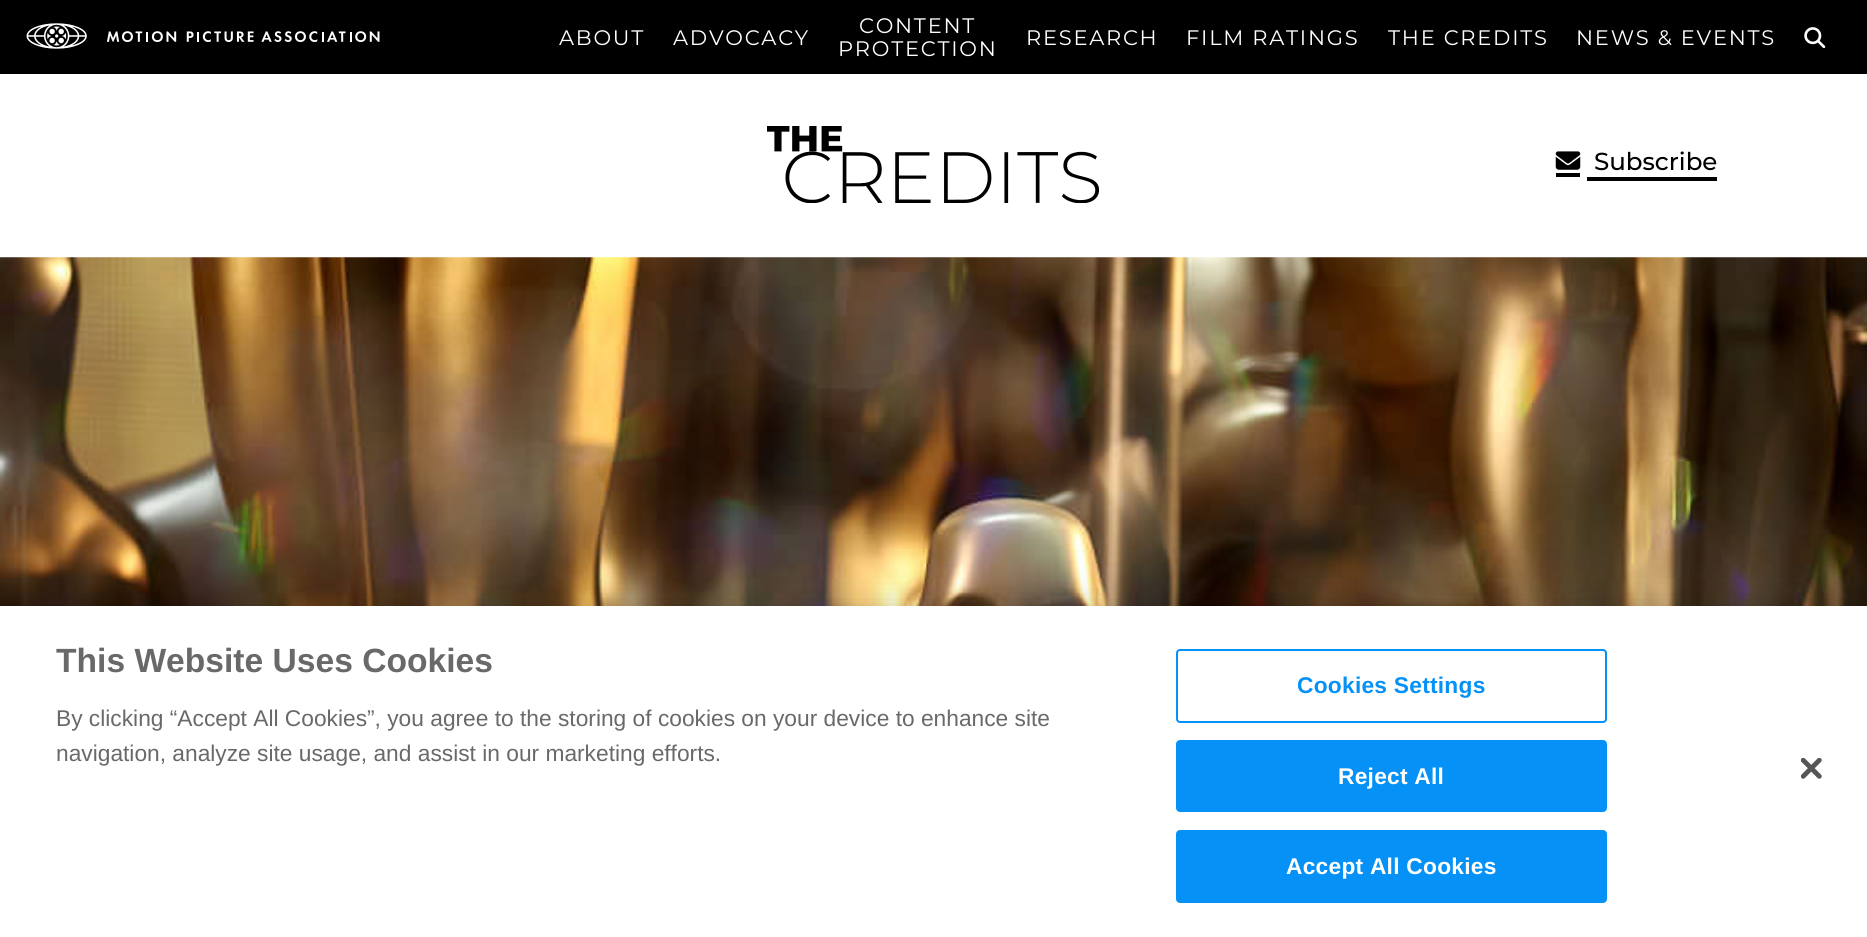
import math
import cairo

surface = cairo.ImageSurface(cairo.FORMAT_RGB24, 1867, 937)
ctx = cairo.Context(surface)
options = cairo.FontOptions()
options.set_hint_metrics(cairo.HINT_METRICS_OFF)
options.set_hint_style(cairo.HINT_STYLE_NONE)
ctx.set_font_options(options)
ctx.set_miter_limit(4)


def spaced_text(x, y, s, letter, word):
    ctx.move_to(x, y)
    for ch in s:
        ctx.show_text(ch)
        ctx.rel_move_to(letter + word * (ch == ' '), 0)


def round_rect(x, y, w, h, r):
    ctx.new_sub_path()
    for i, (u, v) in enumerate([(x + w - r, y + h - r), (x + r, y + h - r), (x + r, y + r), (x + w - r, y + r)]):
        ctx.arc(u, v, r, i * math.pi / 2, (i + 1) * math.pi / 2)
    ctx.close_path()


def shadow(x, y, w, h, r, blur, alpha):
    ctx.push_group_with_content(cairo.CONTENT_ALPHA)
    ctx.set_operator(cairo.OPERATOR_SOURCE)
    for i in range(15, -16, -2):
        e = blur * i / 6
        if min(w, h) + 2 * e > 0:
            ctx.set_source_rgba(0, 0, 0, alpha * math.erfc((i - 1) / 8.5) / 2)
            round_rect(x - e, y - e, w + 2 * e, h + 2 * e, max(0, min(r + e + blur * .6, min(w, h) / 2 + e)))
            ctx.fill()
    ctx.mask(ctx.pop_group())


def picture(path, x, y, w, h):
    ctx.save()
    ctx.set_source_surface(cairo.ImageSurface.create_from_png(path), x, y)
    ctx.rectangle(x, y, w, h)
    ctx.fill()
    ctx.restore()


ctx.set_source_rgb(1, 1, 1)
ctx.paint()
ctx.set_source_rgb(0, 0, 0)
ctx.rectangle(0, 0, 1867, 74)
ctx.fill()
picture("img1.png", 26, 23, 354, 26)
ctx.select_font_face("Montserrat")
ctx.set_font_size(21)
ctx.set_source_rgb(1, 1, 1)
spaced_text(559, 45, "ABOUT", 1.75, 0)
spaced_text(673, 45, "ADVOCACY", 1.75, 0)
spaced_text(859, 33, "CONTENT", 1.75, 0)
spaced_text(838, 56, "PROTECTION", 1.75, 0)
spaced_text(1026, 45, "RESEARCH", 1.75, 0)
spaced_text(1186, 45, "FILM RATINGS", 1.75, 0)
spaced_text(1388, 45, "THE CREDITS", 1.75, 0)
spaced_text(1576, 45, "NEWS & EVENTS", 1.75, 0)
picture("img2.png", 1804, 27, 22, 22)
picture("img3.png", 767, 126, 332, 77)
ctx.set_source_rgb(0, 0, 0)
ctx.rectangle(1556, 173, 24, 4)
ctx.fill()
ctx.rectangle(1587, 177, 130, 4)
ctx.fill()
picture("img4.png", 1555, 151, 26, 19)
ctx.select_font_face("Montserrat Medium")
ctx.set_font_size(24.5)
ctx.move_to(1594, 170)
ctx.show_text("Subscribe")
picture("img5.png", 0, 257, 1867, 349)
ctx.set_source_rgb(0, 0, 0)
shadow(0, 606, 1867, 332, 0, 16, 0.2)
ctx.set_source_rgb(1, 1, 1)
ctx.rectangle(0, 606, 1867, 331)
ctx.fill()
ctx.select_font_face("Liberation Sans", cairo.FONT_SLANT_NORMAL, cairo.FONT_WEIGHT_BOLD)
ctx.set_font_size(33.6)
ctx.set_source_rgb(0.412, 0.412, 0.412)
ctx.move_to(56, 672)
ctx.show_text("This Website Uses Cookies")
ctx.select_font_face("Liberation Sans")
ctx.set_font_size(22.75)
ctx.move_to(56, 726)
ctx.show_text("By clicking “Accept All Cookies”, you agree to the storing of cookies on your device to enhance site")
ctx.move_to(56, 761)
ctx.show_text("navigation, analyze site usage, and assist in our marketing efforts.")
round_rect(1177, 650, 429, 72, 3)
ctx.set_source_rgb(0.02, 0.569, 0.961)
ctx.stroke()
ctx.select_font_face("Liberation Sans", cairo.FONT_SLANT_NORMAL, cairo.FONT_WEIGHT_BOLD)
spaced_text(1297, 693, "Cookies Settings", 0.25, 0)
round_rect(1177, 741, 429, 70, 3)
ctx.fill_preserve()
ctx.stroke()
ctx.set_source_rgb(1, 1, 1)
spaced_text(1338, 784, "Reject All", 0.25, 0)
ctx.set_source_rgb(0.02, 0.569, 0.961)
round_rect(1177, 831, 429, 71, 3)
ctx.fill_preserve()
ctx.stroke()
ctx.set_source_rgb(1, 1, 1)
spaced_text(1286, 874, "Accept All Cookies", 0.25, 0)
picture("img6.png", 1801, 758, 21, 21)
surface.write_to_png("page.png")
